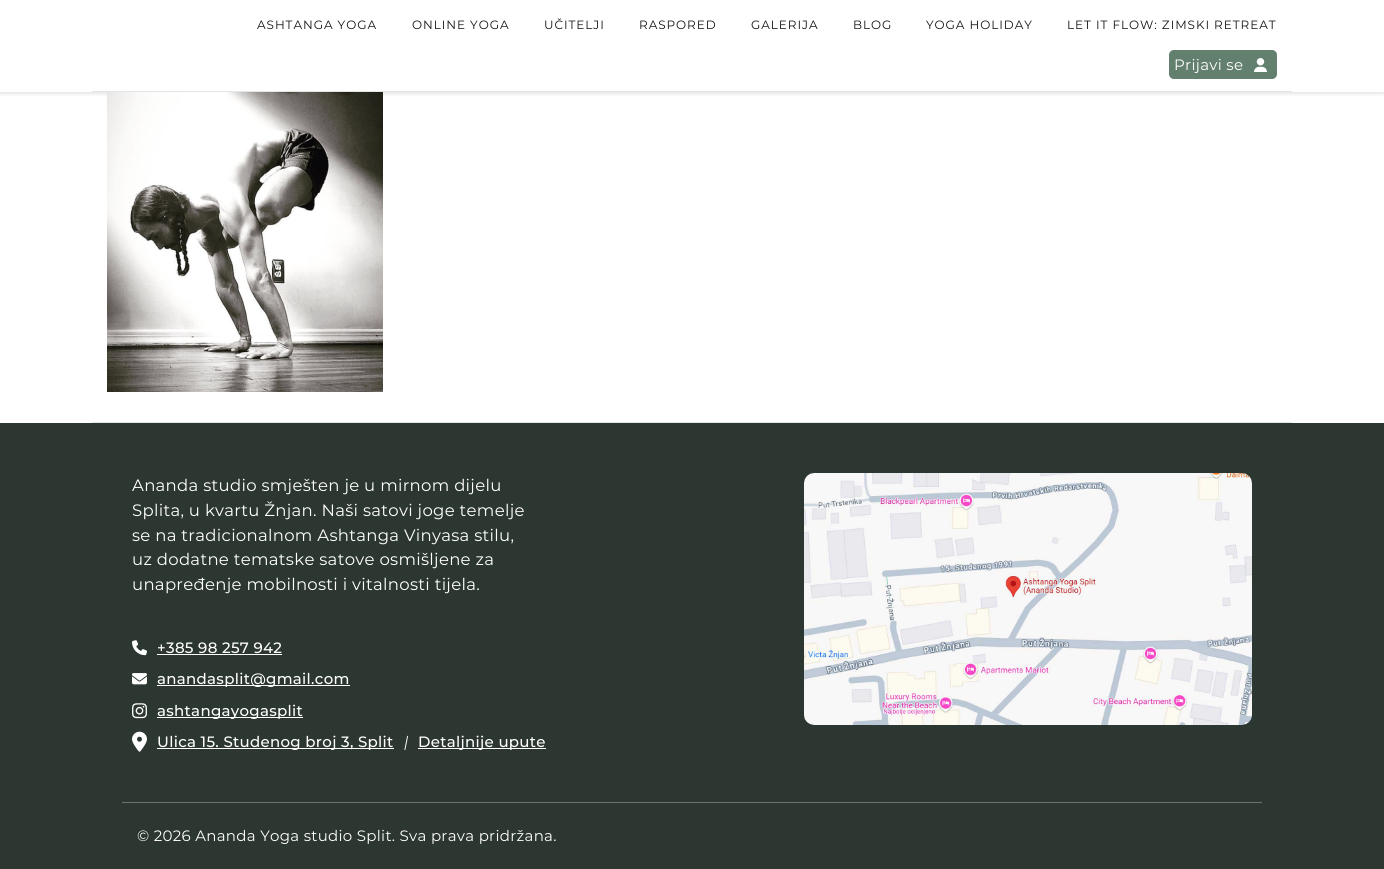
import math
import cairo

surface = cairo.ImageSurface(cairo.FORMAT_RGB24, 1384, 869)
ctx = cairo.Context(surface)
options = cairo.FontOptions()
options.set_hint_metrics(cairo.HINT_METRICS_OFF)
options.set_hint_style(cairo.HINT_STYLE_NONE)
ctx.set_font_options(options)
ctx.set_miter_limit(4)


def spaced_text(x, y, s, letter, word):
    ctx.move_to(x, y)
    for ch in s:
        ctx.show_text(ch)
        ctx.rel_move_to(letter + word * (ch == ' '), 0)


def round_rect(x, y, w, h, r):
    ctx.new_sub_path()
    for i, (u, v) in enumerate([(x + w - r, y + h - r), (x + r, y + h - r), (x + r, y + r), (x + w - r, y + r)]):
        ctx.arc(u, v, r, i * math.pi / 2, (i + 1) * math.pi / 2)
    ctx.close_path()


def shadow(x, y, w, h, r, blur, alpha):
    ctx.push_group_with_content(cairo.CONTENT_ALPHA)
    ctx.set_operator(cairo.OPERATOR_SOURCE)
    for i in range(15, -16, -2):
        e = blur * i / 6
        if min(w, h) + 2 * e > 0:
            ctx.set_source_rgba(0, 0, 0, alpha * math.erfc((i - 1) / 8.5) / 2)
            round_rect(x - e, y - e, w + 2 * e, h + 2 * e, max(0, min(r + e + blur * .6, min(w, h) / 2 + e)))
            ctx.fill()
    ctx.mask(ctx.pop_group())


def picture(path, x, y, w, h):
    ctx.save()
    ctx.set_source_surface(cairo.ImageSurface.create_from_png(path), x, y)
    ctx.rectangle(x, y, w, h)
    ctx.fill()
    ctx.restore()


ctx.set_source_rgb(1, 1, 1)
ctx.paint()
ctx.save()
ctx.rectangle(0, 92, 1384, 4)
ctx.clip()
ctx.set_source_rgb(0, 0, 0)
shadow(0, -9, 1384, 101, 0, 3, 0.2)
ctx.restore()
ctx.set_source_rgb(0.902, 0.902, 0.902)
ctx.rectangle(92, 91, 1200, 1)
ctx.fill()
ctx.select_font_face("Montserrat Thin")
ctx.set_font_size(12)
ctx.set_source_rgb(0.075, 0.075, 0.075)
spaced_text(257, 29, "ASHTANGA YOGA", 0.95, 0)
spaced_text(412, 29, "ONLINE YOGA", 0.95, 0)
spaced_text(544, 29, "UČITELJI", 0.95, 0)
spaced_text(639, 29, "RASPORED", 0.95, 0)
spaced_text(751, 29, "GALERIJA", 0.95, 0)
spaced_text(853, 29, "BLOG", 0.95, 0)
spaced_text(926, 29, "YOGA HOLIDAY", 0.95, 0)
spaced_text(1067, 29, "LET IT FLOW: ZIMSKI RETREAT", 0.95, 0)
ctx.set_source_rgb(0.388, 0.498, 0.431)
round_rect(1169, 50, 108, 29, 5)
ctx.fill()
ctx.set_font_size(15)
ctx.set_source_rgb(1, 1, 1)
spaced_text(1174, 70, "Prijavi se", 0.3, 0)
picture("img1.png", 1254, 58, 13, 14)
ctx.set_source_rgb(0.902, 0.902, 0.902)
ctx.rectangle(92, 422, 1200, 1)
ctx.fill()
picture("img2.png", 107, 92, 276, 300)
ctx.set_source_rgb(0.169, 0.216, 0.188)
ctx.rectangle(0, 423, 1384, 446)
ctx.fill()
ctx.set_source_rgb(0.42, 0.451, 0.431)
ctx.rectangle(122, 802, 1140, 1)
ctx.fill()
ctx.set_font_size(16.5)
ctx.set_source_rgb(1, 1, 1)
spaced_text(132, 491, "Ananda studio smješten je u mirnom dijelu", 0.3, 0)
spaced_text(132, 516, "Splita, u kvartu Žnjan. Naši satovi joge temelje", 0.3, 0)
spaced_text(132, 541, "se na tradicionalnom Ashtanga Vinyasa stilu,", 0.3, 0)
spaced_text(132, 565, "uz dodatne tematske satove osmišljene za", 0.3, 0)
spaced_text(132, 590, "unapređenje mobilnosti i vitalnosti tijela.", 0.3, 0)
picture("img3.png", 132, 640, 15, 16)
ctx.select_font_face("Montserrat Medium")
ctx.set_font_size(15)
spaced_text(157, 653, "+385 98 257 942", 0.3, 0)
ctx.rectangle(157, 654, 125, 1)
ctx.fill()
picture("img4.png", 132, 673, 15, 12)
ctx.rectangle(157, 685, 193, 1)
ctx.fill()
spaced_text(157, 684, "anandasplit@gmail.com", 0.3, 0)
picture("img5.png", 132, 703, 15, 16)
ctx.rectangle(157, 717, 146, 1)
ctx.fill()
spaced_text(157, 716, "ashtangayogasplit", 0.3, 0)
picture("img6.png", 132, 731, 15, 21)
ctx.rectangle(157, 748, 237, 1)
ctx.fill()
spaced_text(157, 747, "Ulica 15. Studenog broj 3, Split", 0.3, 0)
ctx.select_font_face("Montserrat", cairo.FONT_SLANT_ITALIC)
spaced_text(404, 747, "|", 0.3, 0)
ctx.rectangle(418, 748, 128, 1)
ctx.fill()
ctx.select_font_face("Montserrat Medium")
spaced_text(418, 747, "Detaljnije upute", 0.3, 0)
picture("img7.png", 804, 473, 448, 252)
ctx.select_font_face("Montserrat Thin")
spaced_text(137, 841, "© 2026 Ananda Yoga studio Split. Sva prava pridržana.", 0.3, 0)
surface.write_to_png("page.png")
